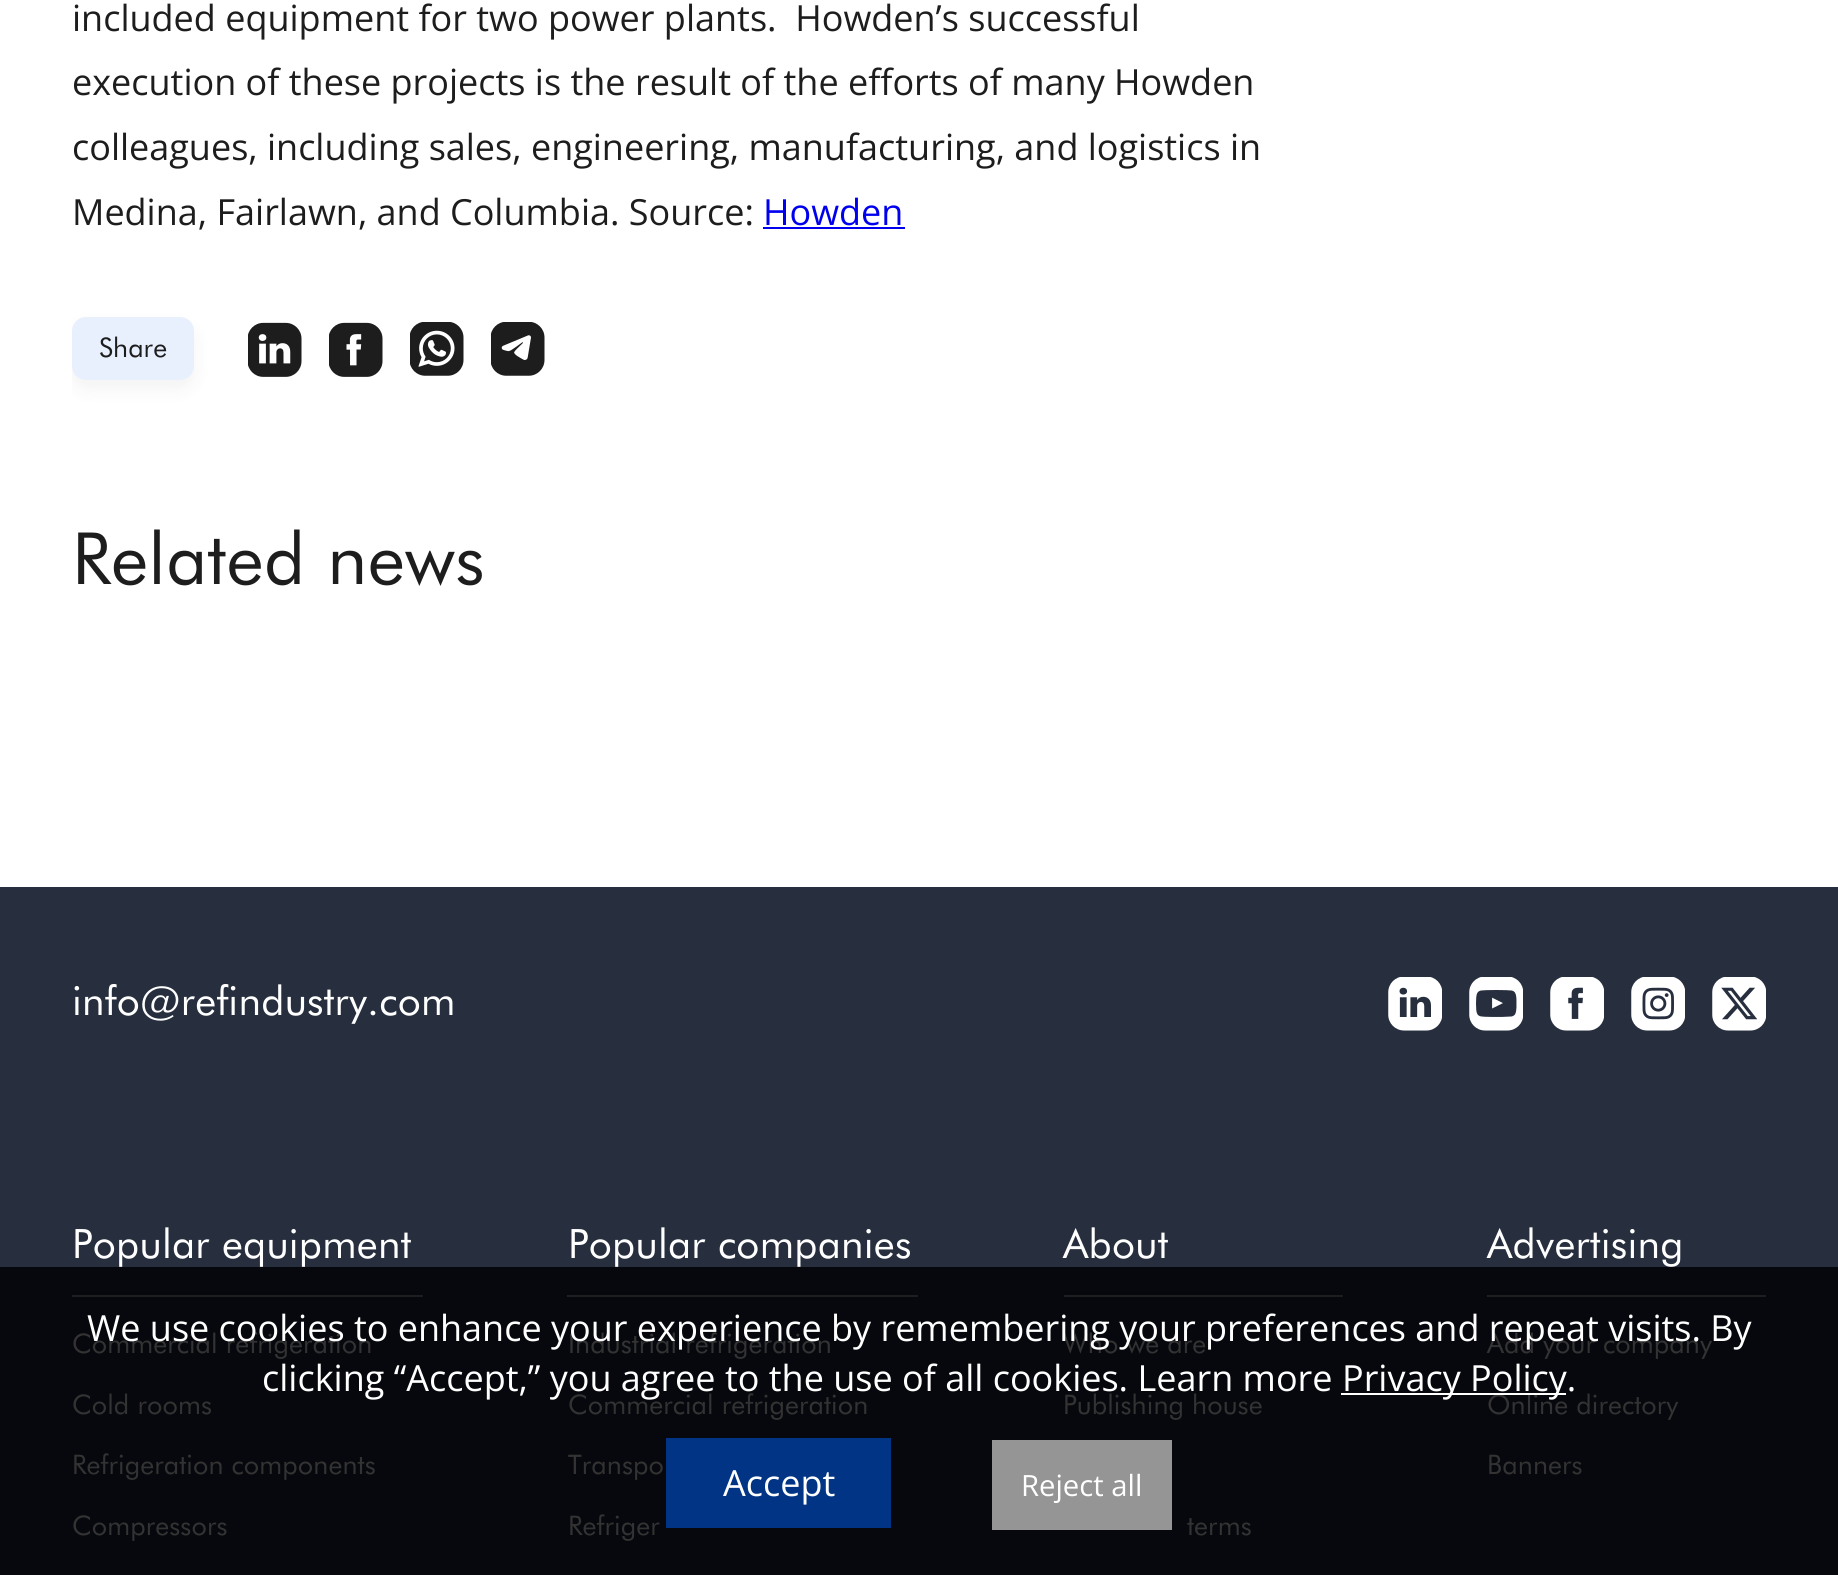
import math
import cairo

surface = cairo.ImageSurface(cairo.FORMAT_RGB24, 1838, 1575)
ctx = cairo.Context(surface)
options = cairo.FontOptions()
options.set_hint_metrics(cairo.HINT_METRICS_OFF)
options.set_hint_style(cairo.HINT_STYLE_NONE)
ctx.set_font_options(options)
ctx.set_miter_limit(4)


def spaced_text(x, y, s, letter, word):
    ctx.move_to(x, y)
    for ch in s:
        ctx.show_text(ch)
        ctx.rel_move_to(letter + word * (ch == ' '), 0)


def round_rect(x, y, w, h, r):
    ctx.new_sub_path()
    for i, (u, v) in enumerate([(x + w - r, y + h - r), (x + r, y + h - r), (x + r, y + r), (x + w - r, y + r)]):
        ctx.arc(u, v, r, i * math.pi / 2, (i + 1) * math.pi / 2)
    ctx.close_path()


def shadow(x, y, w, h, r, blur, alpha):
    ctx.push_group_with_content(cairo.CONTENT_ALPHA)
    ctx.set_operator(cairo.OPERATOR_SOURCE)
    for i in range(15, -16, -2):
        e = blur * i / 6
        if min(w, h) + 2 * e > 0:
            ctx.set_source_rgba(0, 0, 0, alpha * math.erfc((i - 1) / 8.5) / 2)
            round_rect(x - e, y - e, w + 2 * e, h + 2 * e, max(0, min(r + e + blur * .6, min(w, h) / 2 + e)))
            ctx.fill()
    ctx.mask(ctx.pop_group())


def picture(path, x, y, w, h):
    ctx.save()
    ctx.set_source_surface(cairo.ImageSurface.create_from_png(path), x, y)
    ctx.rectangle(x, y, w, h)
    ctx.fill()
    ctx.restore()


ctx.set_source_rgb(1, 1, 1)
ctx.paint()
ctx.select_font_face("Open Sans")
ctx.set_font_size(36)
ctx.set_source_rgb(0.114, 0.114, 0.114)
ctx.move_to(72, 31)
ctx.show_text("included equipment for two power plants.  Howden’s successful")
ctx.move_to(72, 95)
ctx.show_text("execution of these projects is the result of the efforts of many Howden")
ctx.move_to(72, 160)
ctx.show_text("colleagues, including sales, engineering, manufacturing, and logistics in")
ctx.move_to(72, 225)
ctx.show_text("Medina, Fairlawn, and Columbia. Source:")
ctx.set_source_rgb(0, 0, 0.933)
ctx.move_to(763, 225)
ctx.show_text("Howden")
ctx.rectangle(763, 227, 142, 2)
ctx.fill()
ctx.save()
ctx.rectangle(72, 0, 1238, 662)
ctx.clip()
ctx.set_source_rgb(0, 0, 0)
shadow(72, 326, 122, 63, 14, 9, 0.05)
ctx.restore()
ctx.set_source_rgb(0.914, 0.941, 0.992)
round_rect(72, 317, 122, 63, 14)
ctx.fill()
ctx.select_font_face("Futura")
ctx.set_font_size(27)
ctx.set_source_rgb(0.114, 0.114, 0.114)
spaced_text(99, 357, "Share", 0.1, 0)
picture("img1.png", 248, 322, 54, 55)
picture("img2.png", 329, 322, 54, 55)
picture("img3.png", 410, 322, 54, 54)
picture("img4.png", 491, 322, 54, 54)
ctx.set_font_size(72)
spaced_text(72, 584, "Related news", 0.4, 0)
ctx.set_source_rgb(0.153, 0.184, 0.247)
ctx.rectangle(0, 887, 1838, 380)
ctx.fill()
ctx.set_source_rgb(0.031, 0.035, 0.051)
ctx.rectangle(0, 1267, 1838, 308)
ctx.fill()
ctx.set_font_size(40.5)
ctx.set_source_rgb(1, 1, 1)
spaced_text(72, 1015, "info@refindustry.com", 0.25, 0)
picture("img5.png", 1388, 977, 54, 54)
picture("img6.png", 1469, 977, 54, 54)
picture("img7.png", 1550, 977, 54, 54)
picture("img8.png", 1631, 977, 54, 54)
picture("img9.png", 1712, 977, 54, 54)
spaced_text(72, 1258, "Popular equipment", 0.25, 0)
ctx.set_source_rgb(0.114, 0.118, 0.125)
ctx.rectangle(72, 1295, 351, 2)
ctx.fill()
ctx.set_font_size(27)
ctx.set_source_rgb(0.2, 0.2, 0.2)
spaced_text(72, 1353, "Commercial refrigeration", 0.1, 0)
spaced_text(72, 1414, "Cold rooms", 0.1, 0)
spaced_text(72, 1474, "Refrigeration components", 0.1, 0)
spaced_text(72, 1535, "Compressors", 0.1, 0)
ctx.set_font_size(40.5)
ctx.set_source_rgb(1, 1, 1)
spaced_text(568, 1258, "Popular companies", 0.25, 0)
ctx.set_source_rgb(0.114, 0.118, 0.125)
ctx.rectangle(567, 1295, 351, 2)
ctx.fill()
ctx.set_font_size(27)
ctx.set_source_rgb(0.2, 0.2, 0.2)
spaced_text(568, 1353, "Industrial refrigeration", 0.1, 0)
spaced_text(568, 1414, "Commercial refrigeration", 0.1, 0)
spaced_text(568, 1474, "Transpo", 0.1, 0)
spaced_text(568, 1535, "Refriger", 0.1, 0)
ctx.set_font_size(40.5)
ctx.set_source_rgb(1, 1, 1)
spaced_text(1063, 1258, "About", 0.25, 0)
ctx.set_source_rgb(0.114, 0.118, 0.125)
ctx.rectangle(1064, 1295, 279, 2)
ctx.fill()
ctx.set_font_size(27)
ctx.set_source_rgb(0.2, 0.2, 0.2)
spaced_text(1063, 1353, "Who we are", 0.1, 0)
spaced_text(1063, 1414, "Publishing house", 0.1, 0)
spaced_text(1187, 1535, "terms", 0.1, 0)
ctx.set_font_size(40.5)
ctx.set_source_rgb(1, 1, 1)
spaced_text(1487, 1258, "Advertising", 0.25, 0)
ctx.set_source_rgb(0.114, 0.118, 0.125)
ctx.rectangle(1487, 1295, 279, 2)
ctx.fill()
ctx.set_font_size(27)
ctx.set_source_rgb(0.2, 0.2, 0.2)
spaced_text(1487, 1353, "Add your company", 0.1, 0)
spaced_text(1487, 1414, "Online directory", 0.1, 0)
spaced_text(1487, 1474, "Banners", 0.1, 0)
ctx.select_font_face("Open Sans")
ctx.set_font_size(36)
ctx.set_source_rgb(1, 1, 1)
ctx.move_to(87, 1341)
ctx.show_text("We use cookies to enhance your experience by remembering your preferences and repeat visits. By")
ctx.move_to(262, 1391)
ctx.show_text("clicking “Accept,” you agree to the use of all cookies. Learn more")
ctx.rectangle(1341, 1393, 225, 2)
ctx.fill()
ctx.move_to(1342, 1391)
ctx.show_text("Privacy Policy.")
ctx.set_source_rgb(0.004, 0.204, 0.522)
ctx.rectangle(666, 1438, 225, 90)
ctx.fill()
ctx.set_source_rgb(1, 1, 1)
ctx.move_to(723, 1496)
ctx.show_text("Accept")
ctx.set_source_rgb(0.584, 0.584, 0.584)
ctx.rectangle(992, 1440, 180, 90)
ctx.fill()
ctx.set_font_size(29.25)
ctx.set_source_rgb(1, 1, 1)
ctx.move_to(1021, 1496)
ctx.show_text("Reject all")
surface.write_to_png("page.png")
